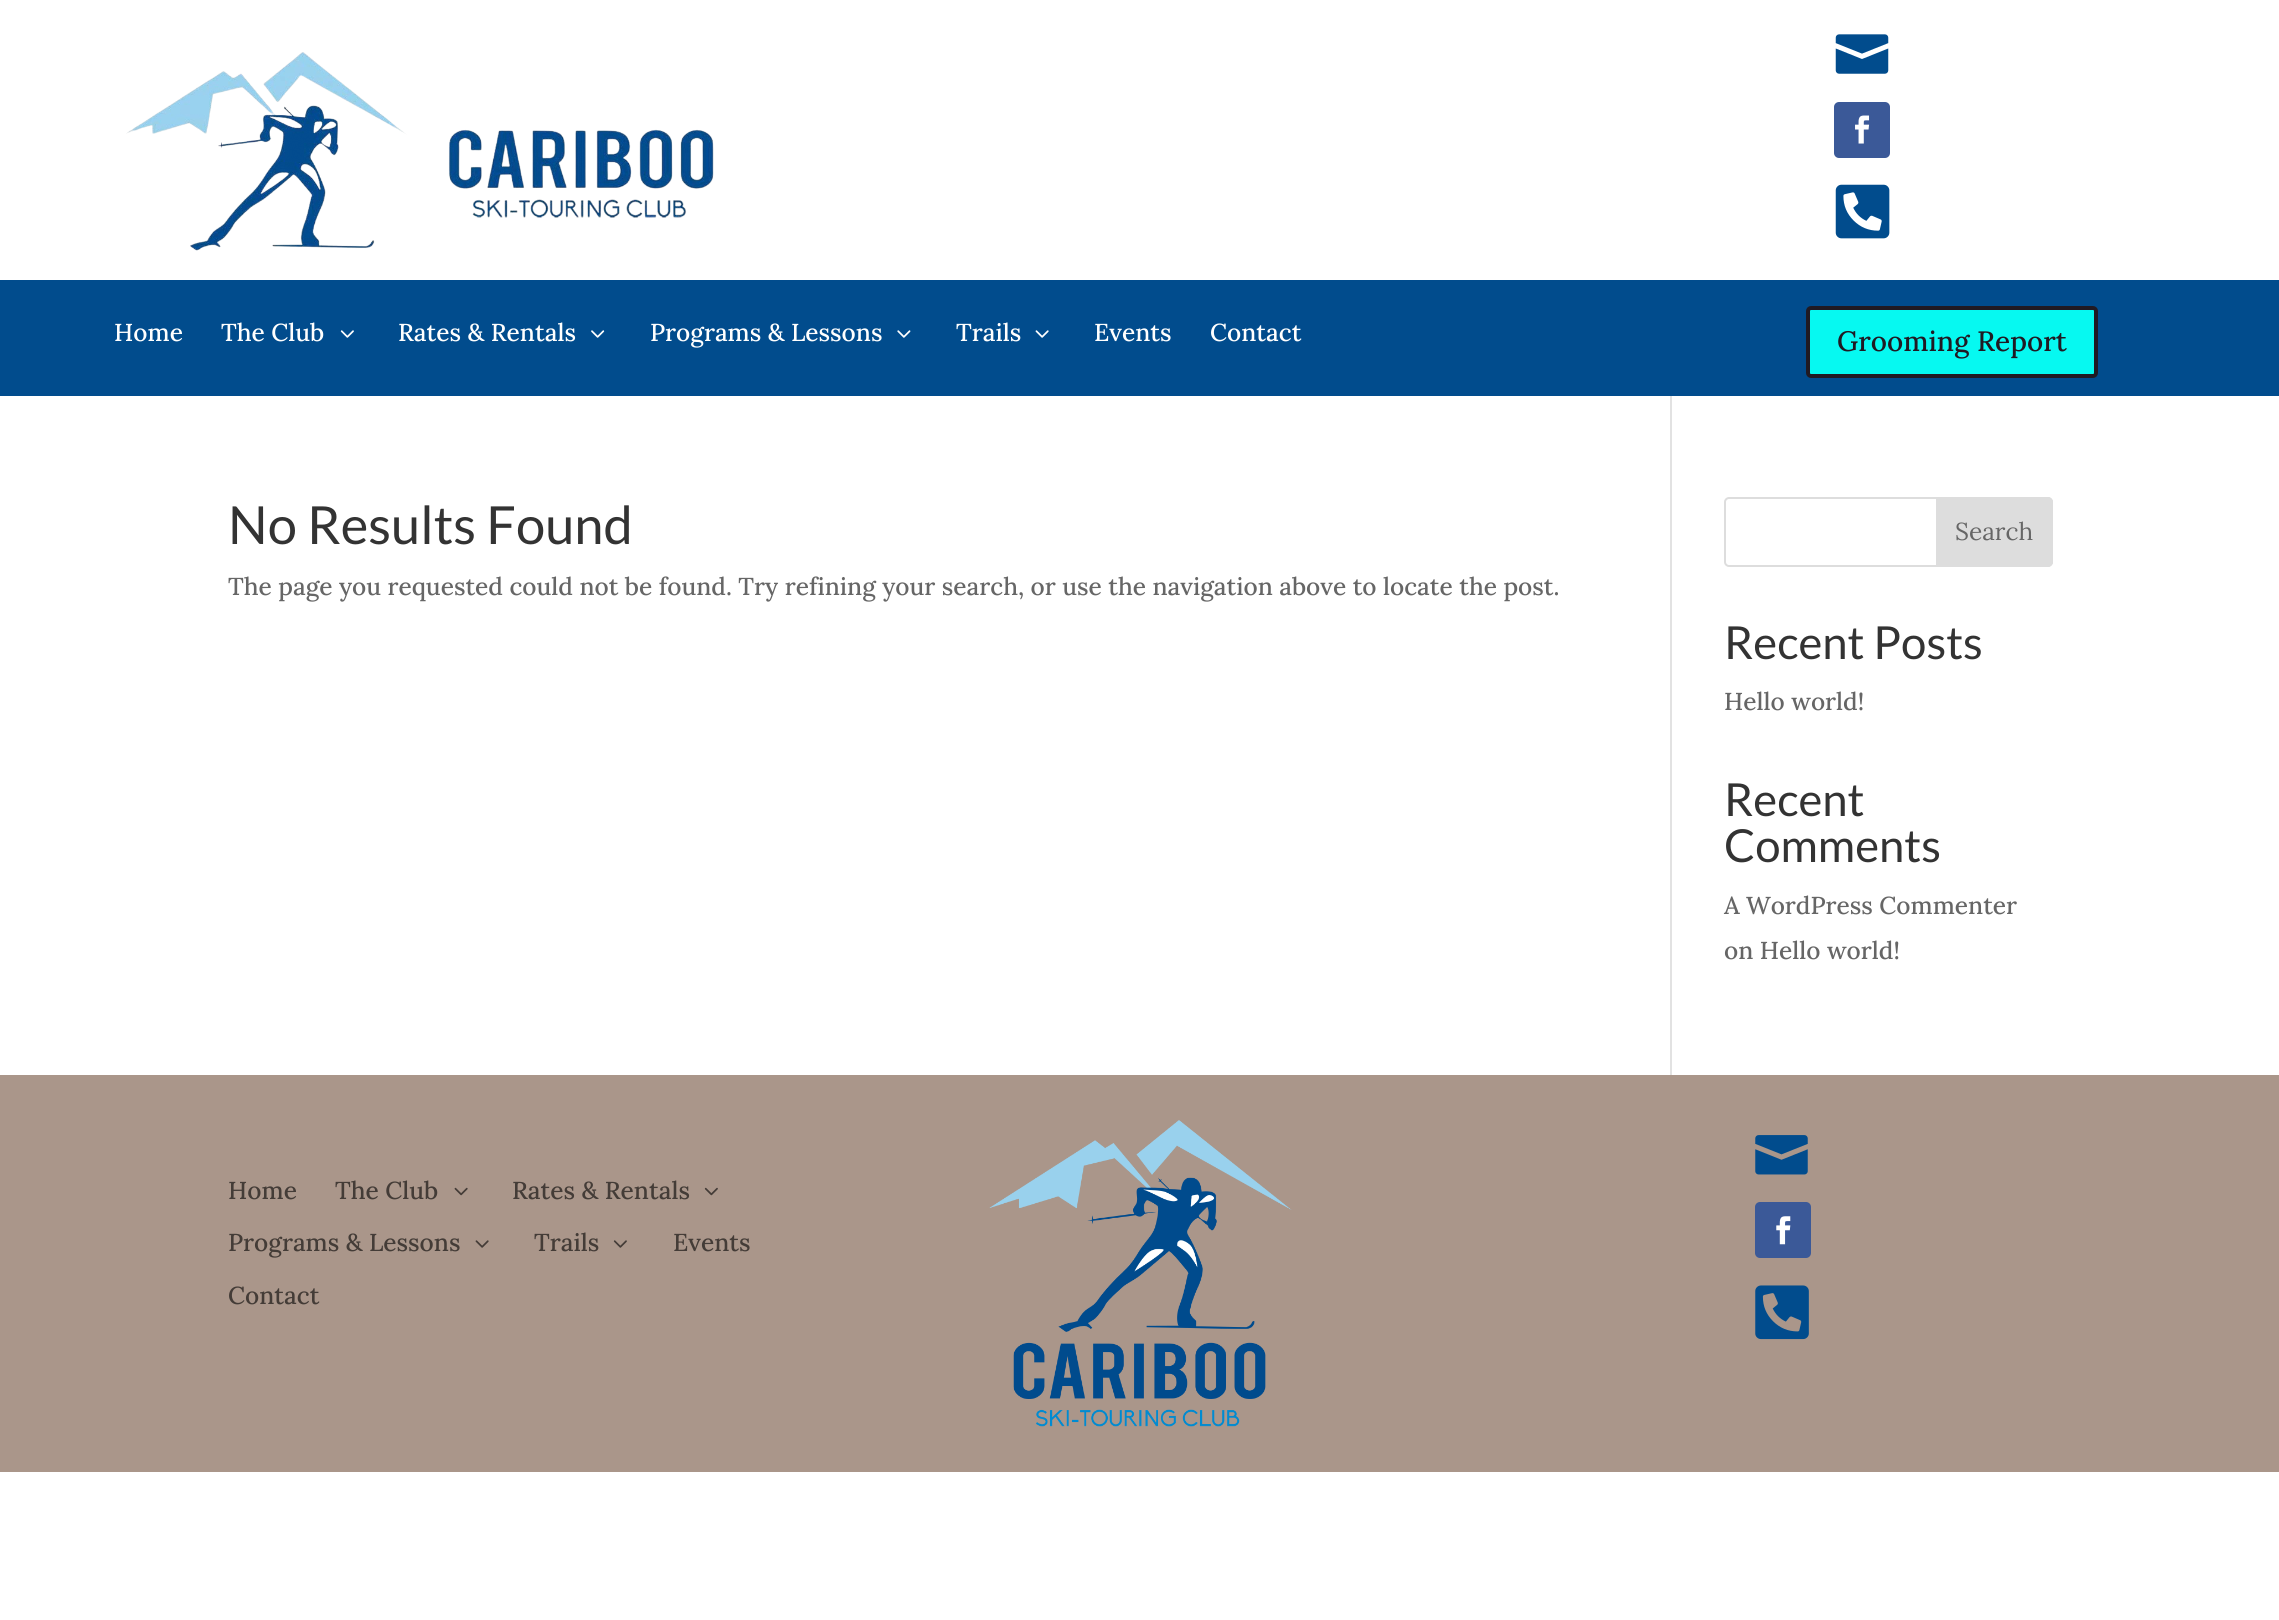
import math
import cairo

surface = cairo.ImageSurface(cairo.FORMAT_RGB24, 2279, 1620)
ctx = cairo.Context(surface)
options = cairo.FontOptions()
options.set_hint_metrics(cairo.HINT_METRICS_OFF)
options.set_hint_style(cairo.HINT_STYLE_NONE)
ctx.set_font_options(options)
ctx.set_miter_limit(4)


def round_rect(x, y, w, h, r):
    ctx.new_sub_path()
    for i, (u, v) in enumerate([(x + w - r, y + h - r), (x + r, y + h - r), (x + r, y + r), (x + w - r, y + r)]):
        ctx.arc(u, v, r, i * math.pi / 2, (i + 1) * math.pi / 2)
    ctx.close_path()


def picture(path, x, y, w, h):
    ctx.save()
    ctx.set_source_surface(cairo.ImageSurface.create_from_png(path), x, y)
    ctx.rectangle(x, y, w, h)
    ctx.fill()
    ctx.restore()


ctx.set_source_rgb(1, 1, 1)
ctx.paint()
picture("img1.png", 126, 52, 588, 199)
picture("img2.png", 1835, 34, 54, 40)
ctx.set_source_rgb(0.231, 0.349, 0.596)
round_rect(1834, 102, 56, 56, 5)
ctx.fill()
picture("img3.png", 1855, 115, 15, 29)
picture("img4.png", 1835, 184, 55, 55)
ctx.set_source_rgb(0.004, 0.298, 0.553)
ctx.rectangle(0, 280, 2279, 116)
ctx.fill()
ctx.select_font_face("Lora Medium")
ctx.set_font_size(24.5)
ctx.set_source_rgb(1, 1, 1)
ctx.move_to(114, 341)
ctx.show_text("Home")
ctx.move_to(221, 341)
ctx.show_text("The Club")
picture("img5.png", 340, 330, 14, 8)
ctx.move_to(398, 341)
ctx.show_text("Rates & Rentals")
picture("img6.png", 591, 330, 14, 8)
ctx.move_to(650, 341)
ctx.show_text("Programs & Lessons")
picture("img7.png", 897, 330, 14, 8)
ctx.move_to(956, 341)
ctx.show_text("Trails")
picture("img8.png", 1035, 330, 14, 8)
ctx.move_to(1094, 341)
ctx.show_text("Events")
ctx.move_to(1210, 341)
ctx.show_text("Contact")
ctx.set_source_rgb(0.027, 0.976, 0.945)
round_rect(1808, 308, 288, 68, 3)
ctx.fill_preserve()
ctx.set_source_rgb(0.125, 0.102, 0.137)
ctx.set_line_width(4)
ctx.stroke()
ctx.set_font_size(28)
ctx.move_to(1837, 351)
ctx.show_text("Grooming Report")
ctx.set_source_rgb(0.886, 0.886, 0.886)
ctx.rectangle(1670, 396, 2, 679)
ctx.fill()
ctx.select_font_face("Lato")
ctx.set_font_size(52.5)
ctx.set_source_rgb(0.2, 0.2, 0.2)
ctx.move_to(228, 544)
ctx.show_text("No Results Found")
ctx.select_font_face("Lora Medium")
ctx.set_font_size(24.5)
ctx.set_source_rgb(0.4, 0.4, 0.4)
ctx.move_to(228, 595)
ctx.show_text("The page you requested could not be found. Try refining your search, or use the navigation above to locate the post.")
round_rect(1725, 498, 327, 68, 4)
ctx.set_source_rgb(0.867, 0.867, 0.867)
ctx.set_line_width(2)
ctx.stroke()
ctx.new_path()
ctx.move_to(1937, 498)
ctx.line_to(2048, 498)
ctx.curve_to(2050, 498, 2052, 500, 2052, 502)
ctx.line_to(2052, 562)
ctx.curve_to(2052, 564, 2050, 566, 2048, 566)
ctx.line_to(1937, 566)
ctx.close_path()
ctx.fill_preserve()
ctx.stroke()
ctx.select_font_face("Lora")
ctx.set_source_rgb(0.4, 0.4, 0.4)
ctx.move_to(1955, 540)
ctx.show_text("Search")
ctx.select_font_face("Lato")
ctx.set_font_size(45.5)
ctx.set_source_rgb(0.2, 0.2, 0.2)
ctx.move_to(1724, 659)
ctx.show_text("Recent Posts")
ctx.select_font_face("Lora Medium")
ctx.set_font_size(24.5)
ctx.set_source_rgb(0.4, 0.4, 0.4)
ctx.move_to(1724, 710)
ctx.show_text("Hello world!")
ctx.select_font_face("Lato")
ctx.set_font_size(45.5)
ctx.set_source_rgb(0.2, 0.2, 0.2)
ctx.move_to(1724, 816)
ctx.show_text("Recent")
ctx.move_to(1724, 862)
ctx.show_text("Comments")
ctx.select_font_face("Lora Medium")
ctx.set_font_size(24.5)
ctx.set_source_rgb(0.4, 0.4, 0.4)
ctx.move_to(1724, 914)
ctx.show_text("A WordPress Commenter")
ctx.move_to(1724, 959)
ctx.show_text("on Hello world!")
ctx.set_source_rgb(0.667, 0.588, 0.541)
ctx.rectangle(0, 1075, 2279, 397)
ctx.fill()
ctx.set_source_rgb(0.267, 0.235, 0.216)
ctx.move_to(228, 1199)
ctx.show_text("Home")
ctx.move_to(335, 1199)
ctx.show_text("The Club")
picture("img9.png", 454, 1187, 14, 9)
ctx.move_to(512, 1199)
ctx.show_text("Rates & Rentals")
picture("img10.png", 704, 1187, 14, 9)
ctx.move_to(228, 1251)
ctx.show_text("Programs & Lessons")
picture("img11.png", 475, 1240, 14, 8)
ctx.move_to(534, 1251)
ctx.show_text("Trails")
picture("img12.png", 613, 1240, 14, 8)
ctx.move_to(673, 1251)
ctx.show_text("Events")
ctx.move_to(228, 1304)
ctx.show_text("Contact")
picture("img13.png", 989, 1120, 303, 307)
picture("img14.png", 1755, 1135, 53, 40)
ctx.set_source_rgb(0.231, 0.349, 0.596)
round_rect(1755, 1202, 56, 56, 5)
ctx.fill()
picture("img15.png", 1776, 1216, 15, 29)
picture("img16.png", 1755, 1285, 54, 55)
surface.write_to_png("page.png")
